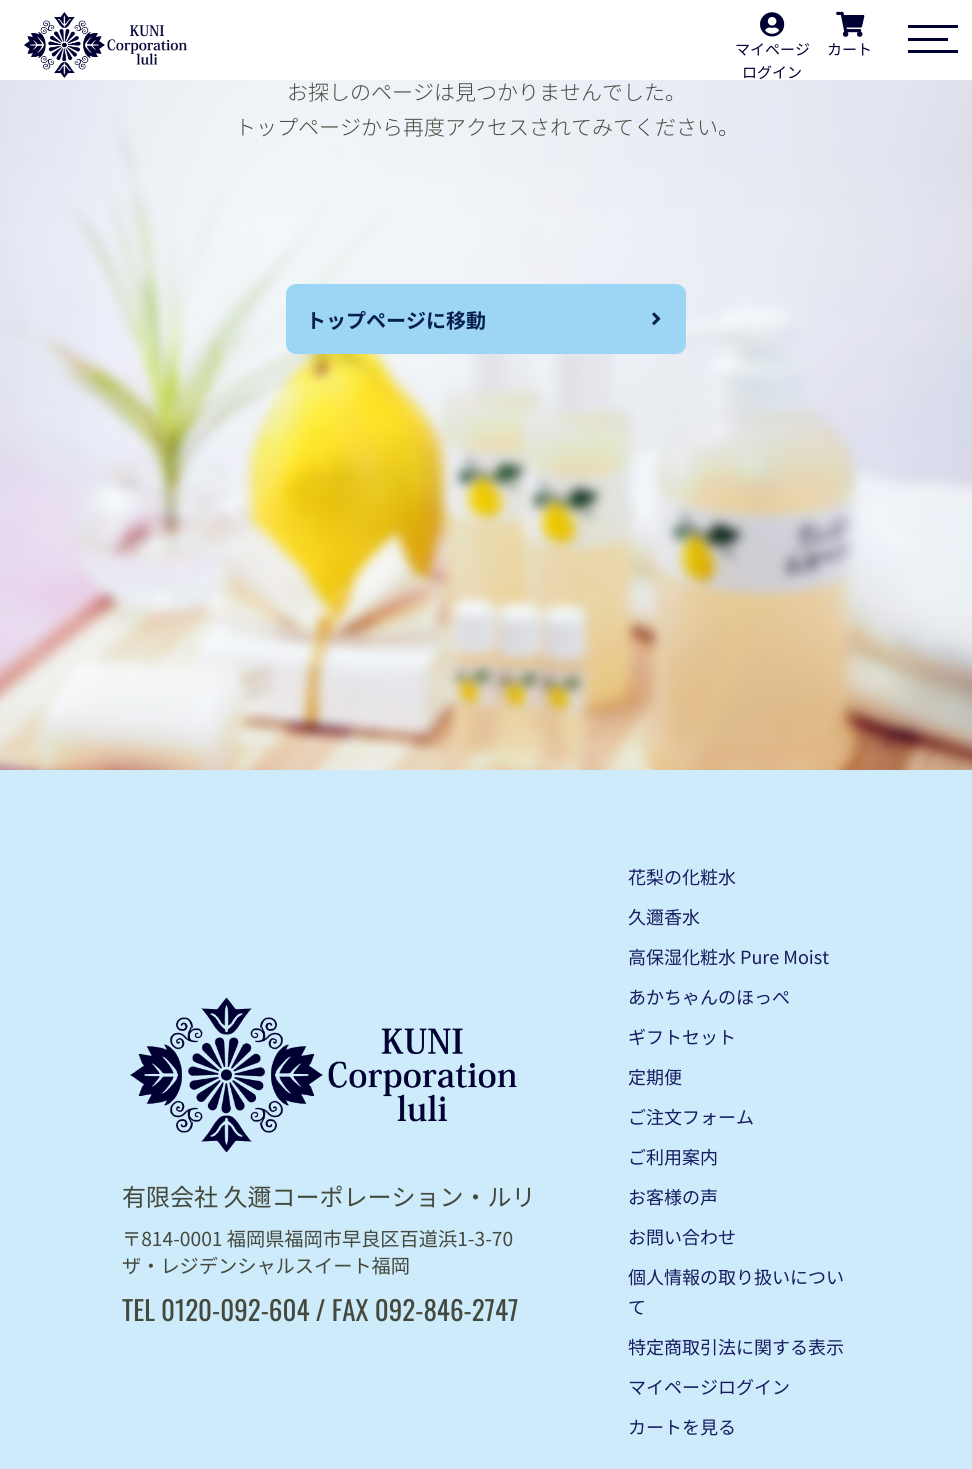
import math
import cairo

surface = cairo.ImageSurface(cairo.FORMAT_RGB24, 972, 1469)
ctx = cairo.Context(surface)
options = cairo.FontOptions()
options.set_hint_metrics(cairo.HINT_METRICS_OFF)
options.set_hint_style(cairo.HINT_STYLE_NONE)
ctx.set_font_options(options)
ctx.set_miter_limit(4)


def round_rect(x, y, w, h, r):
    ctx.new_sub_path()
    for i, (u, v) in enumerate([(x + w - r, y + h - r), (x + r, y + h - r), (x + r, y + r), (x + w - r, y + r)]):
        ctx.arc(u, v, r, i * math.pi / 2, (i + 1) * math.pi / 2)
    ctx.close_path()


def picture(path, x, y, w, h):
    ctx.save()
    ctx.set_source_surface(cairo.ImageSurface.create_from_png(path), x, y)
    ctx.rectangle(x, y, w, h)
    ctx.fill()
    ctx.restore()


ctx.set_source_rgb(1, 1, 1)
ctx.paint()
picture("img1.png", 0, 80, 972, 690)
ctx.set_source_rgb(0, 0, 0.2)
ctx.rectangle(908, 25, 50, 3)
ctx.fill()
ctx.rectangle(908, 38, 40, 3)
ctx.fill()
ctx.rectangle(908, 50, 50, 3)
ctx.fill()
picture("img2.png", 24, 12, 163, 66)
picture("img3.png", 760, 12, 25, 25)
ctx.select_font_face("Noto Sans JP")
ctx.set_font_size(15)
ctx.move_to(735, 55)
ctx.show_text("マイページ")
ctx.move_to(742, 78)
ctx.show_text("ログイン")
picture("img4.png", 836, 11, 29, 26)
ctx.move_to(827, 55)
ctx.show_text("カート")
ctx.select_font_face("Noto Sans JP Light")
ctx.set_font_size(21)
ctx.set_source_rgb(0.271, 0.286, 0.239)
ctx.move_to(287, 100)
ctx.show_text("お探しのページは見つかりませんでした。")
ctx.move_to(235, 135)
ctx.show_text("トップページから再度アクセスされてみてください。")
ctx.set_source_rgb(0.616, 0.839, 0.957)
round_rect(286, 284, 400, 70, 10)
ctx.fill()
ctx.select_font_face("Noto Sans JP", cairo.FONT_SLANT_NORMAL, cairo.FONT_WEIGHT_BOLD)
ctx.set_font_size(20)
ctx.set_source_rgb(0.024, 0.122, 0.31)
ctx.move_to(306, 328)
ctx.show_text("トップページに移動")
picture("img5.png", 652, 312, 9, 13)
ctx.set_source_rgb(0.804, 0.918, 0.98)
ctx.rectangle(0, 770, 972, 699)
ctx.fill()
picture("img6.png", 130, 997, 387, 156)
ctx.select_font_face("Noto Sans JP")
ctx.set_font_size(24)
ctx.set_source_rgb(0.271, 0.286, 0.239)
ctx.move_to(122, 1206)
ctx.show_text("有限会社 久邇コーポレーション・ルリ")
ctx.set_font_size(19.2)
ctx.move_to(122, 1246)
ctx.show_text("〒814-0001 福岡県福岡市早良区百道浜1-3-70")
ctx.move_to(122, 1273)
ctx.show_text("ザ・レジデンシャルスイート福岡")
ctx.select_font_face("Oswald")
ctx.set_font_size(27)
ctx.move_to(122, 1321)
ctx.show_text("TEL 0120-092-604 / FAX 092-846-2747")
ctx.select_font_face("Noto Sans JP")
ctx.set_font_size(18)
ctx.set_source_rgb(0.09, 0.11, 0.38)
ctx.move_to(628, 884)
ctx.show_text("花梨の化粧水")
ctx.move_to(628, 924)
ctx.show_text("久邇香水")
ctx.move_to(628, 964)
ctx.show_text("高保湿化粧水 Pure Moist")
ctx.move_to(628, 1004)
ctx.show_text("あかちゃんのほっぺ")
ctx.move_to(628, 1044)
ctx.show_text("ギフトセット")
ctx.move_to(628, 1084)
ctx.show_text("定期便")
ctx.move_to(628, 1124)
ctx.show_text("ご注文フォーム")
ctx.move_to(628, 1164)
ctx.show_text("ご利用案内")
ctx.move_to(628, 1204)
ctx.show_text("お客様の声")
ctx.move_to(628, 1244)
ctx.show_text("お問い合わせ")
ctx.move_to(628, 1284)
ctx.show_text("個人情報の取り扱いについ")
ctx.move_to(628, 1314)
ctx.show_text("て")
ctx.move_to(628, 1354)
ctx.show_text("特定商取引法に関する表示")
ctx.move_to(628, 1394)
ctx.show_text("マイページログイン")
ctx.move_to(628, 1434)
ctx.show_text("カートを見る")
surface.write_to_png("page.png")
